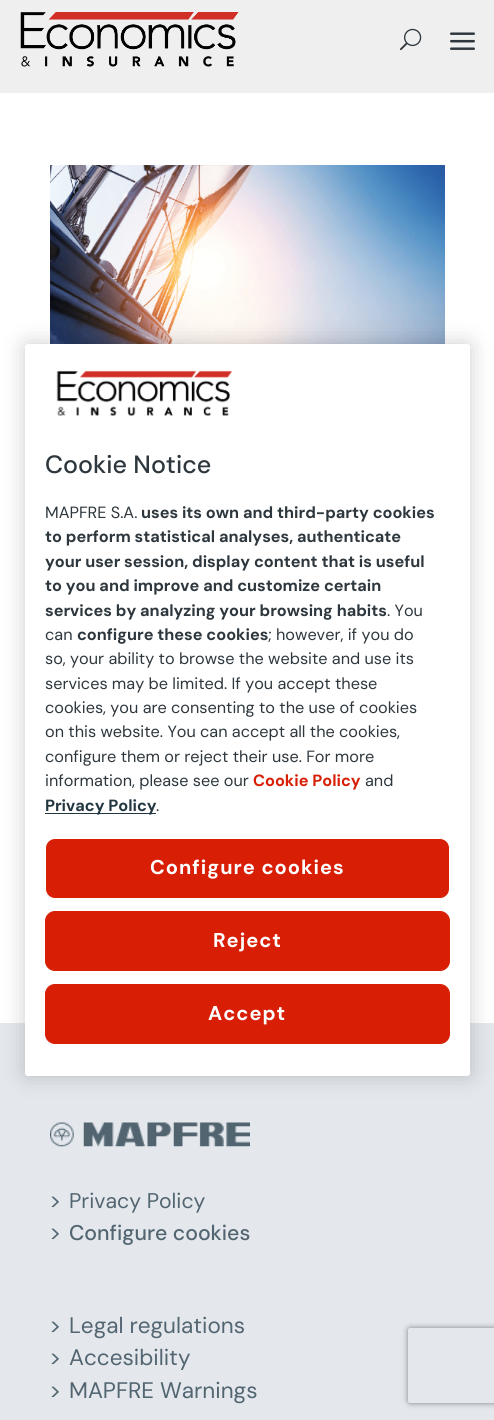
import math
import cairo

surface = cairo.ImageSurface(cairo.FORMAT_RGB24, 494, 1420)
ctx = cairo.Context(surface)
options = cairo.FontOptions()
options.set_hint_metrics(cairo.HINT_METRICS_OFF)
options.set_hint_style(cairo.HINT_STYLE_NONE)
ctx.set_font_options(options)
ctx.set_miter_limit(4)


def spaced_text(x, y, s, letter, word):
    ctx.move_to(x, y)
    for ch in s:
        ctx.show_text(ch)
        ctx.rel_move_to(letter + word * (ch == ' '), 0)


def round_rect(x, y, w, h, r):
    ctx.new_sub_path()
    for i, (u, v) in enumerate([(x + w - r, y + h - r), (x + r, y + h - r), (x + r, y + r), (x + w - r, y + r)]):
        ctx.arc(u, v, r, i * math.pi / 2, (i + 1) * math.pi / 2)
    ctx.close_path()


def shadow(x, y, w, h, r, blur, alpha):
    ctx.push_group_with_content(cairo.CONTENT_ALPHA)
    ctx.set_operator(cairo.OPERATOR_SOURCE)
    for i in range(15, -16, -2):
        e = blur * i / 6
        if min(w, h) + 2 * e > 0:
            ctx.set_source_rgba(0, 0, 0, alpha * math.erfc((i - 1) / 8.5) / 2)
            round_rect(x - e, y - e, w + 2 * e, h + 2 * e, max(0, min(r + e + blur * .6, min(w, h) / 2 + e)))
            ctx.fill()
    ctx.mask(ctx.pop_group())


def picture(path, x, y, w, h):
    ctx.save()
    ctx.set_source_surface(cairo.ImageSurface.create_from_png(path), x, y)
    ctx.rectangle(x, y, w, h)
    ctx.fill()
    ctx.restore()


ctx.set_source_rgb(1, 1, 1)
ctx.paint()
picture("img5.png", 50, 165, 395, 179)
ctx.set_source_rgb(0.894, 0.91, 0.929)
ctx.rectangle(0, 1023, 494, 397)
ctx.fill()
ctx.set_source_rgb(0, 0, 0)
shadow(25, 344, 445, 732, 3, 11, 0.2)
ctx.set_source_rgb(1, 1, 1)
round_rect(25, 344, 445, 732, 3)
ctx.fill()
picture("img1.png", 56, 370, 177, 46)
ctx.select_font_face("DM Sans Medium")
ctx.set_font_size(25)
ctx.set_source_rgb(0.176, 0.216, 0.239)
ctx.move_to(45, 473)
ctx.show_text("Cookie Notice")
ctx.select_font_face("DM Sans")
ctx.set_font_size(16.25)
ctx.move_to(45, 518)
ctx.show_text("MAPFRE S.A.")
ctx.select_font_face("DM Sans", cairo.FONT_SLANT_NORMAL, cairo.FONT_WEIGHT_BOLD)
ctx.move_to(141, 518)
ctx.show_text("uses its own and third-party cookies")
ctx.move_to(45, 542)
ctx.show_text("to perform statistical analyses, authenticate")
ctx.move_to(45, 567)
ctx.show_text("your user session, display content that is useful")
ctx.move_to(45, 591)
ctx.show_text("to you and improve and customize certain")
ctx.move_to(45, 616)
ctx.show_text("services by analyzing your browsing habits")
ctx.select_font_face("DM Sans")
ctx.move_to(387, 616)
ctx.show_text(". You")
ctx.move_to(45, 640)
ctx.show_text("can")
ctx.select_font_face("DM Sans", cairo.FONT_SLANT_NORMAL, cairo.FONT_WEIGHT_BOLD)
ctx.move_to(77, 640)
ctx.show_text("configure these cookies")
ctx.select_font_face("DM Sans")
ctx.move_to(268, 640)
ctx.show_text("; however, if you do")
ctx.move_to(45, 664)
ctx.show_text("so, your ability to browse the website and use its")
ctx.move_to(45, 689)
ctx.show_text("services may be limited. If you accept these")
ctx.move_to(45, 713)
ctx.show_text("cookies, you are consenting to the use of cookies")
ctx.move_to(45, 737)
ctx.show_text("on this website. You can accept all the cookies,")
ctx.move_to(45, 762)
ctx.show_text("configure them or reject their use. For more")
ctx.move_to(45, 786)
ctx.show_text("information, please see our")
ctx.select_font_face("DM Sans", cairo.FONT_SLANT_NORMAL, cairo.FONT_WEIGHT_BOLD)
ctx.set_source_rgb(0.847, 0.118, 0.02)
ctx.move_to(253, 786)
ctx.show_text("Cookie Policy")
ctx.select_font_face("DM Sans")
ctx.set_source_rgb(0.176, 0.216, 0.239)
ctx.move_to(365, 786)
ctx.show_text("and")
ctx.set_source_rgb(0.137, 0.216, 0.259)
ctx.rectangle(45, 813, 111, 1)
ctx.fill()
ctx.select_font_face("DM Sans", cairo.FONT_SLANT_NORMAL, cairo.FONT_WEIGHT_BOLD)
ctx.move_to(45, 811)
ctx.show_text("Privacy Policy")
ctx.select_font_face("DM Sans")
ctx.set_source_rgb(0.176, 0.216, 0.239)
ctx.move_to(156, 811)
ctx.show_text(".")
ctx.set_source_rgb(0.847, 0.118, 0.02)
round_rect(45.5, 838.5, 404, 60, 9.5)
ctx.fill_preserve()
ctx.set_source_rgb(1, 1, 1)
ctx.set_line_width(1)
ctx.stroke()
ctx.select_font_face("DM Sans", cairo.FONT_SLANT_NORMAL, cairo.FONT_WEIGHT_BOLD)
ctx.set_font_size(20)
spaced_text(150, 874, "Configure cookies", 1, 0)
ctx.set_source_rgb(0.847, 0.118, 0.02)
round_rect(45.5, 911.5, 404, 59, 9.5)
ctx.fill_preserve()
ctx.stroke()
ctx.set_source_rgb(1, 1, 1)
spaced_text(213, 947, "Reject", 1, 0)
ctx.set_source_rgb(0.847, 0.118, 0.02)
round_rect(45.5, 984.5, 404, 59, 9.5)
ctx.fill_preserve()
ctx.stroke()
ctx.set_source_rgb(1, 1, 1)
spaced_text(208, 1020, "Accept", 1, 0)
ctx.set_source_rgb(0.937, 0.937, 0.937)
ctx.rectangle(0, 0, 494, 93)
ctx.fill()
picture("img2.png", 20, 12, 219, 55)
picture("img3.png", 400, 28, 22, 23)
picture("img4.png", 450, 32, 25, 18)
picture("img6.png", 50, 1122, 200, 25)
ctx.select_font_face("DM Sans")
ctx.set_font_size(22.5)
ctx.set_source_rgb(0.322, 0.396, 0.439)
ctx.move_to(49, 1208)
ctx.show_text(">")
ctx.set_font_size(21.25)
ctx.move_to(69, 1208)
ctx.show_text("Privacy Policy")
ctx.set_font_size(22.5)
ctx.move_to(49, 1240)
ctx.show_text(">")
ctx.select_font_face("DM Sans Medium")
ctx.set_font_size(21.25)
ctx.move_to(69, 1240)
ctx.show_text("Configure cookies")
ctx.select_font_face("DM Sans")
ctx.set_font_size(22.5)
ctx.move_to(49, 1333)
ctx.show_text(">")
ctx.move_to(69, 1333)
ctx.show_text("Legal regulations")
ctx.move_to(49, 1365)
ctx.show_text(">")
ctx.move_to(69, 1365)
ctx.show_text("Accesibility")
ctx.move_to(49, 1398)
ctx.show_text(">")
ctx.move_to(69, 1398)
ctx.show_text("MAPFRE Warnings")
ctx.save()
ctx.set_fill_rule(cairo.FILL_RULE_EVEN_ODD)
ctx.new_path()
ctx.move_to(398, 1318)
ctx.line_to(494, 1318)
ctx.line_to(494, 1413)
ctx.line_to(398, 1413)
ctx.close_path()
ctx.move_to(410.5, 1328)
ctx.line_to(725.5, 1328)
ctx.curve_to(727, 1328, 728, 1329, 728, 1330.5)
ctx.line_to(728, 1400.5)
ctx.curve_to(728, 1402, 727, 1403, 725.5, 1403)
ctx.line_to(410.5, 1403)
ctx.curve_to(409, 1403, 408, 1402, 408, 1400.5)
ctx.line_to(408, 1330.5)
ctx.curve_to(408, 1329, 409, 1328, 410.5, 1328)
ctx.close_path()
ctx.clip()
ctx.set_source_rgb(0.502, 0.502, 0.502)
shadow(408, 1328, 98, 75, 2.5, 3, 1)
ctx.restore()
surface.write_to_png("page.png")
